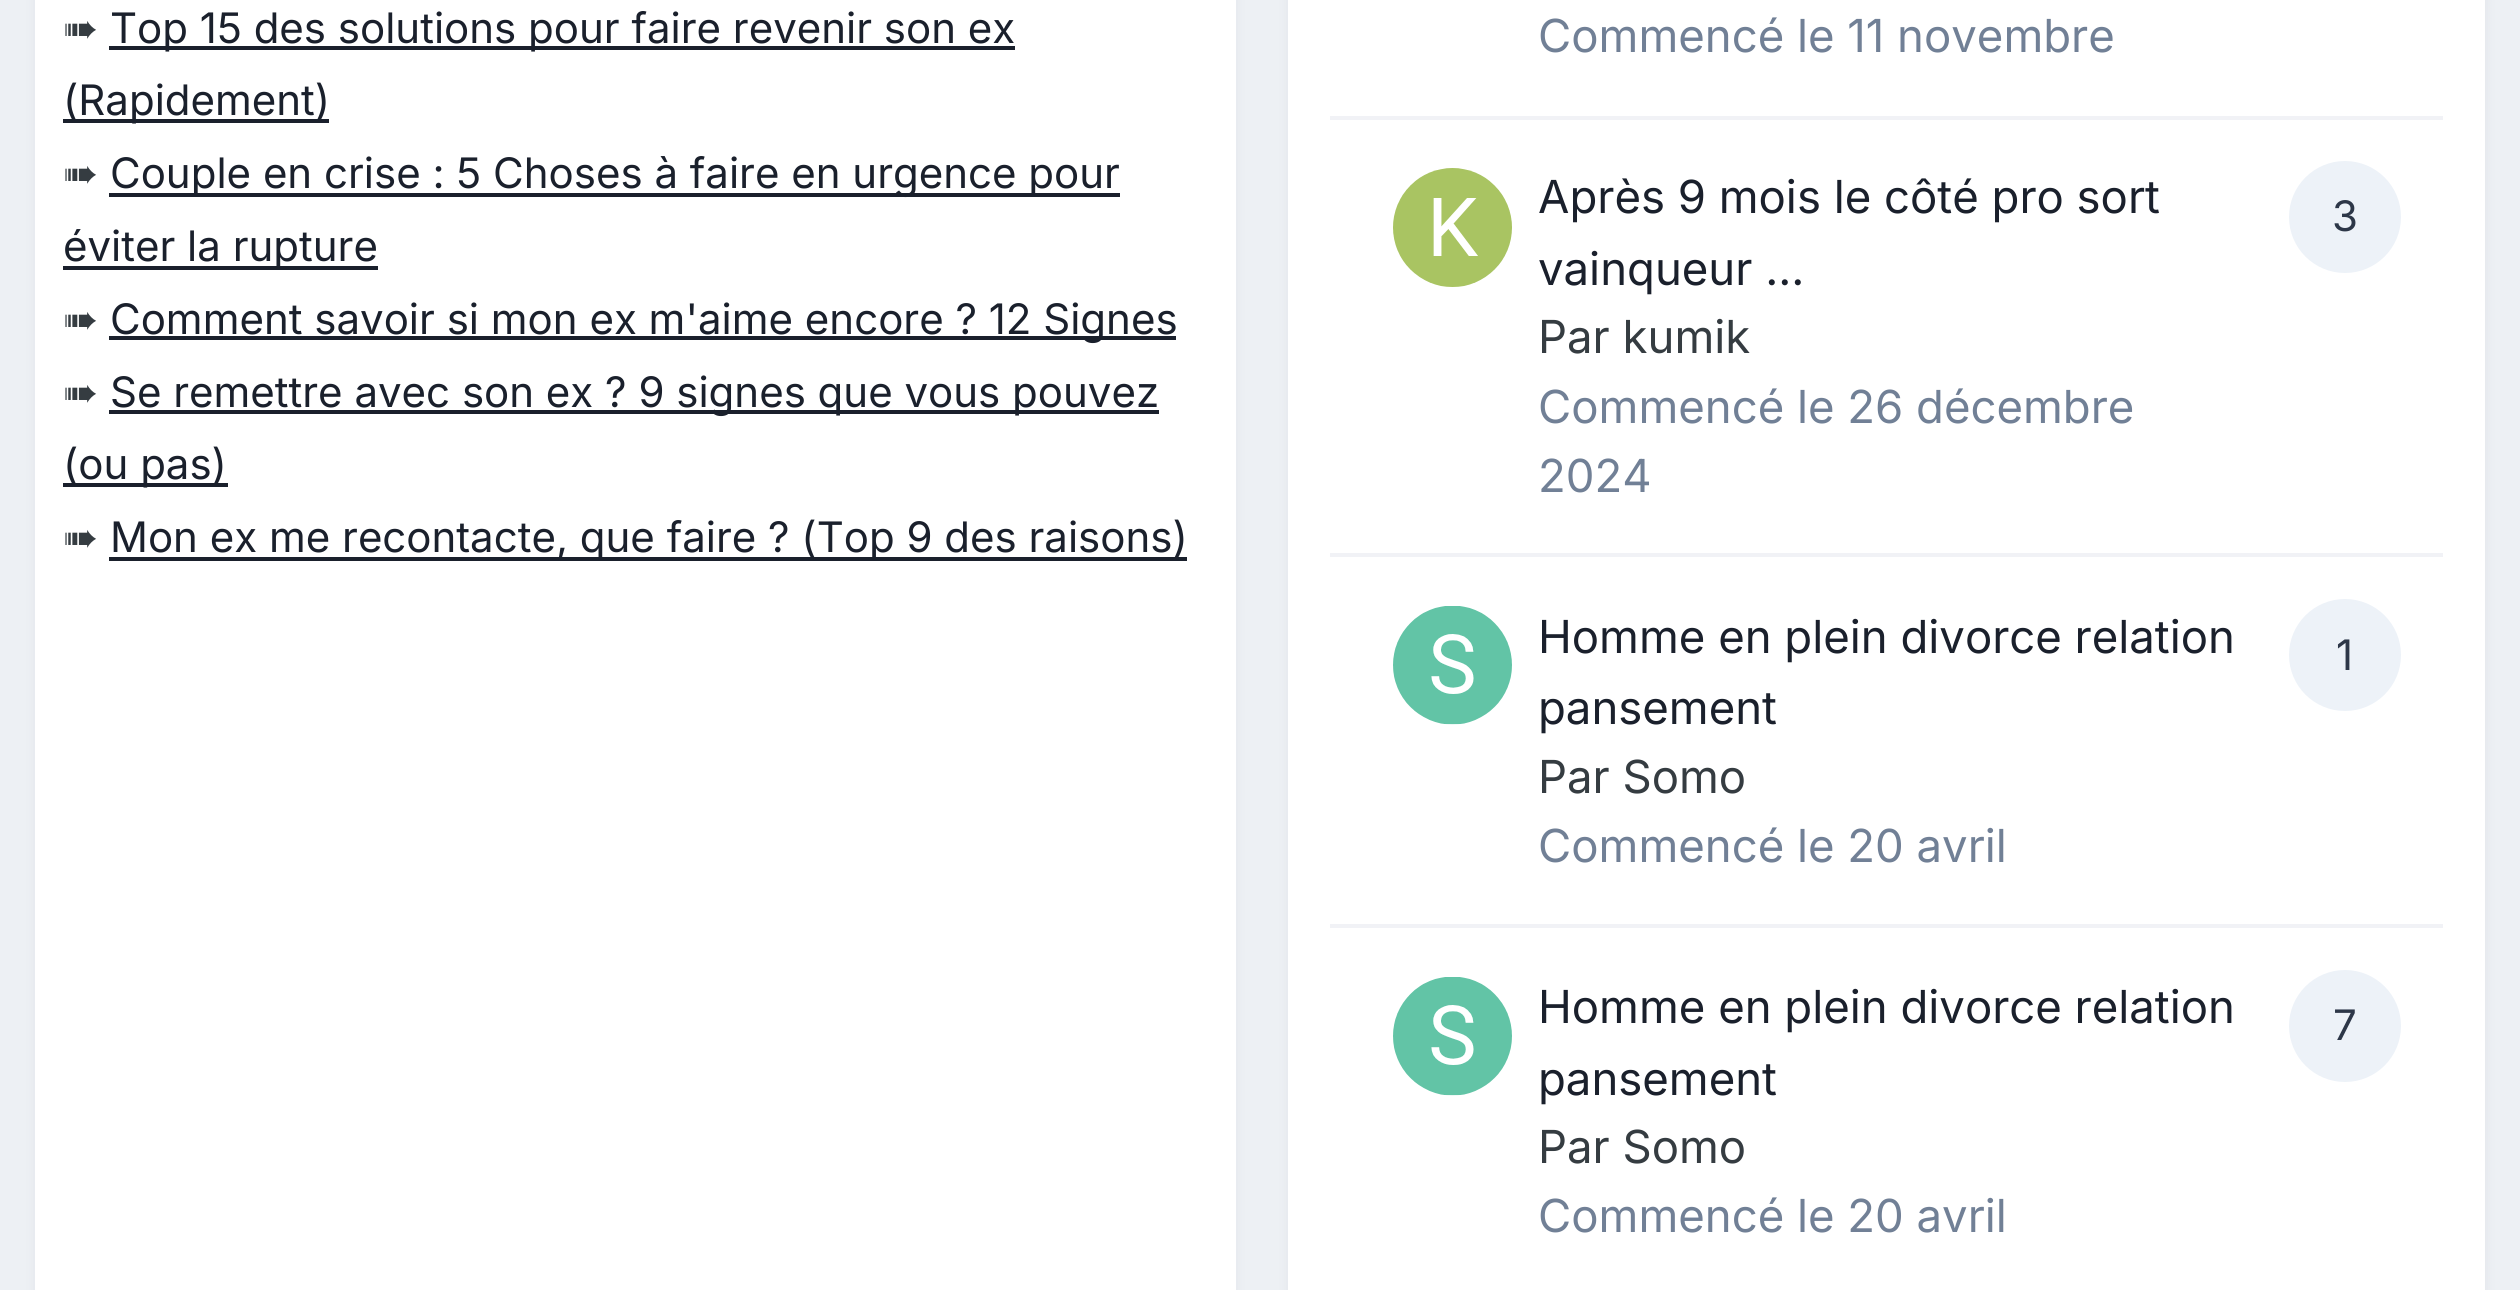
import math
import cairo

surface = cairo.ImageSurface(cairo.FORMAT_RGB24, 2520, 1290)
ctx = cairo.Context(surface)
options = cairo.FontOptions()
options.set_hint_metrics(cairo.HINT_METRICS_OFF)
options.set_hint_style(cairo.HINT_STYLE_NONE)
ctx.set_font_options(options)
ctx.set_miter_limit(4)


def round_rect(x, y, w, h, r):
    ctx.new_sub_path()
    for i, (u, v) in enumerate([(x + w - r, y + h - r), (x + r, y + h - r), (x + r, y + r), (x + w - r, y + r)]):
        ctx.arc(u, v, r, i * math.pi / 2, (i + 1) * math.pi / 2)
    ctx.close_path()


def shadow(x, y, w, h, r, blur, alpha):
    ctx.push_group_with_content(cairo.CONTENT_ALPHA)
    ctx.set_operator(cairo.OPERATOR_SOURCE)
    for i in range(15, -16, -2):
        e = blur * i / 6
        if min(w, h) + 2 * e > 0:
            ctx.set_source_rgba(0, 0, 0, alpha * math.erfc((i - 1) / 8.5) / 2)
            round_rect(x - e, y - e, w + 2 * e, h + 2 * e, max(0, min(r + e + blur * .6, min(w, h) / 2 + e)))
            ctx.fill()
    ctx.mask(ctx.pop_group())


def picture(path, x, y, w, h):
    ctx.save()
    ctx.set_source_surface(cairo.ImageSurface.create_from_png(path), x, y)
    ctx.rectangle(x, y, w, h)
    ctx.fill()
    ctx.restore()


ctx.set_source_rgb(0.929, 0.941, 0.957)
ctx.paint()
ctx.set_source_rgb(0.176, 0.216, 0.282)
shadow(39, -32, 1193, 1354, 11, 7, 0.1)
ctx.set_source_rgb(1, 1, 1)
ctx.rectangle(35, 0, 1201, 1290)
ctx.fill()
ctx.select_font_face("DejaVu Sans")
ctx.set_font_size(42)
ctx.set_source_rgb(0.208, 0.235, 0.255)
ctx.move_to(63, 43)
ctx.show_text("➠")
ctx.set_source_rgb(0.102, 0.125, 0.173)
ctx.rectangle(109, 46, 906, 4)
ctx.fill()
ctx.select_font_face("Inter")
ctx.move_to(110, 43)
ctx.show_text("Top 15 des solutions pour faire revenir son ex")
ctx.rectangle(63, 119, 266, 4)
ctx.fill()
ctx.move_to(63, 115)
ctx.show_text("(Rapidement)")
ctx.select_font_face("DejaVu Sans")
ctx.set_source_rgb(0.208, 0.235, 0.255)
ctx.move_to(63, 188)
ctx.show_text("➠")
ctx.set_source_rgb(0.102, 0.125, 0.173)
ctx.rectangle(109, 193, 1011, 4)
ctx.fill()
ctx.select_font_face("Inter")
ctx.move_to(110, 188)
ctx.show_text("Couple en crise : 5 Choses à faire en urgence pour")
ctx.rectangle(63, 266, 315, 4)
ctx.fill()
ctx.move_to(63, 261)
ctx.show_text("éviter la rupture")
ctx.select_font_face("DejaVu Sans")
ctx.set_source_rgb(0.208, 0.235, 0.255)
ctx.move_to(63, 334)
ctx.show_text("➠")
ctx.set_source_rgb(0.102, 0.125, 0.173)
ctx.rectangle(109, 336, 1067, 4)
ctx.fill()
ctx.select_font_face("Inter")
ctx.move_to(110, 334)
ctx.show_text("Comment savoir si mon ex m'aime encore ? 12 Signes")
ctx.select_font_face("DejaVu Sans")
ctx.set_source_rgb(0.208, 0.235, 0.255)
ctx.move_to(63, 407)
ctx.show_text("➠")
ctx.set_source_rgb(0.102, 0.125, 0.173)
ctx.rectangle(109, 410, 1050, 4)
ctx.fill()
ctx.select_font_face("Inter")
ctx.move_to(110, 407)
ctx.show_text("Se remettre avec son ex ? 9 signes que vous pouvez")
ctx.rectangle(63, 483, 165, 4)
ctx.fill()
ctx.move_to(63, 479)
ctx.show_text("(ou pas)")
ctx.select_font_face("DejaVu Sans")
ctx.set_source_rgb(0.208, 0.235, 0.255)
ctx.move_to(63, 552)
ctx.show_text("➠")
ctx.set_source_rgb(0.102, 0.125, 0.173)
ctx.rectangle(109, 557, 1078, 4)
ctx.fill()
ctx.select_font_face("Inter")
ctx.move_to(110, 552)
ctx.show_text("Mon ex me recontacte, que faire ? (Top 9 des raisons)")
ctx.set_source_rgb(0.176, 0.216, 0.282)
shadow(1292, -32, 1190, 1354, 11, 7, 0.1)
ctx.set_source_rgb(1, 1, 1)
ctx.rectangle(1288, 0, 1197, 1290)
ctx.fill()
ctx.set_source_rgb(0.945, 0.949, 0.961)
ctx.rectangle(1330, 116, 1113, 4)
ctx.fill()
ctx.set_font_size(45.5)
ctx.set_source_rgb(0.443, 0.502, 0.588)
ctx.move_to(1538, 52)
ctx.show_text("Commencé le 11 novembre")
ctx.set_source_rgb(0.945, 0.949, 0.961)
ctx.rectangle(1330, 553, 1113, 4)
ctx.fill()
picture("img1.png", 1393, 168, 119, 119)
ctx.set_source_rgb(0.102, 0.125, 0.173)
ctx.move_to(1538, 213)
ctx.show_text("Après 9 mois le côté pro sort")
ctx.move_to(1538, 285)
ctx.show_text("vainqueur ...")
ctx.set_source_rgb(0.929, 0.949, 0.969)
ctx.new_path()
ctx.arc(2345, 217, 56, 0, 2 * math.pi)
ctx.fill()
ctx.set_font_size(42)
ctx.set_source_rgb(0.176, 0.216, 0.282)
ctx.move_to(2332, 231)
ctx.show_text("3")
ctx.set_font_size(45.5)
ctx.set_source_rgb(0.208, 0.235, 0.255)
ctx.move_to(1538, 353)
ctx.show_text("Par kumik")
ctx.set_source_rgb(0.443, 0.502, 0.588)
ctx.move_to(1538, 423)
ctx.show_text("Commencé le 26 décembre")
ctx.move_to(1538, 492)
ctx.show_text("2024")
ctx.set_source_rgb(0.945, 0.949, 0.961)
ctx.rectangle(1330, 924, 1113, 4)
ctx.fill()
picture("img2.png", 1393, 606, 119, 119)
ctx.set_source_rgb(0.102, 0.125, 0.173)
ctx.move_to(1538, 653)
ctx.show_text("Homme en plein divorce relation")
ctx.move_to(1538, 724)
ctx.show_text("pansement")
ctx.set_source_rgb(0.929, 0.949, 0.969)
ctx.new_path()
ctx.arc(2345, 655, 56, 0, 2 * math.pi)
ctx.fill()
ctx.set_font_size(42)
ctx.set_source_rgb(0.176, 0.216, 0.282)
ctx.move_to(2336, 670)
ctx.show_text("1")
ctx.set_font_size(45.5)
ctx.set_source_rgb(0.208, 0.235, 0.255)
ctx.move_to(1538, 793)
ctx.show_text("Par Somo")
ctx.set_source_rgb(0.443, 0.502, 0.588)
ctx.move_to(1538, 862)
ctx.show_text("Commencé le 20 avril")
picture("img2.png", 1393, 977, 119, 119)
ctx.set_source_rgb(0.102, 0.125, 0.173)
ctx.move_to(1538, 1023)
ctx.show_text("Homme en plein divorce relation")
ctx.move_to(1538, 1095)
ctx.show_text("pansement")
ctx.set_source_rgb(0.929, 0.949, 0.969)
ctx.new_path()
ctx.arc(2345, 1026, 56, 0, 2 * math.pi)
ctx.fill()
ctx.set_font_size(42)
ctx.set_source_rgb(0.176, 0.216, 0.282)
ctx.move_to(2333, 1040)
ctx.show_text("7")
ctx.set_font_size(45.5)
ctx.set_source_rgb(0.208, 0.235, 0.255)
ctx.move_to(1538, 1163)
ctx.show_text("Par Somo")
ctx.set_source_rgb(0.443, 0.502, 0.588)
ctx.move_to(1538, 1232)
ctx.show_text("Commencé le 20 avril")
surface.write_to_png("page.png")
